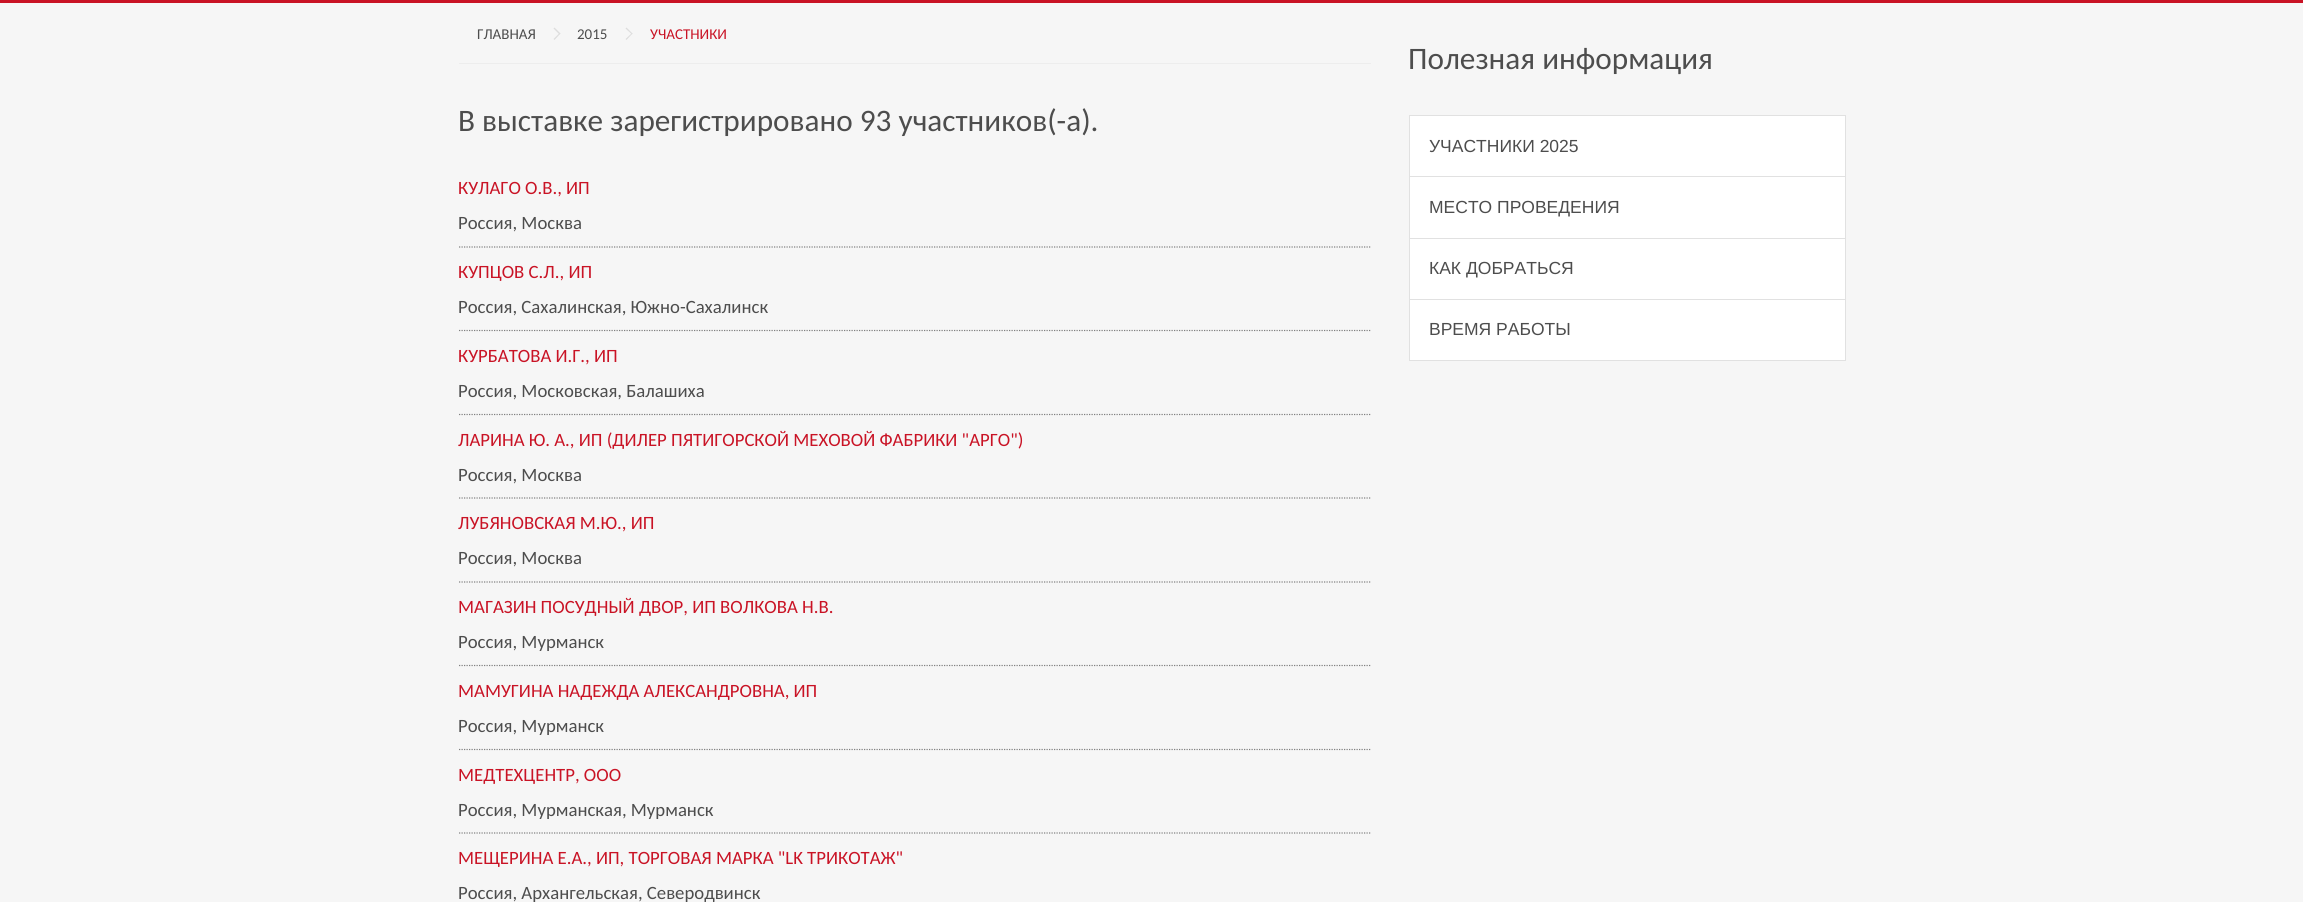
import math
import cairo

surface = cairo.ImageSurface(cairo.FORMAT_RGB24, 2303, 902)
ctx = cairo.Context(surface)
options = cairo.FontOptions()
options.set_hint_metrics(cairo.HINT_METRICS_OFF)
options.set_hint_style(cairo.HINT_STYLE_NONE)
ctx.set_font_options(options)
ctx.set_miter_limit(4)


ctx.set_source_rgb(0.961, 0.961, 0.961)
ctx.paint()
ctx.set_source_rgb(0.788, 0.078, 0.145)
ctx.rectangle(0, 0, 2303, 3)
ctx.fill()
ctx.set_source_rgb(0.929, 0.929, 0.929)
ctx.rectangle(459, 63, 912, 1)
ctx.fill()
ctx.select_font_face("Carlito")
ctx.set_font_size(15)
ctx.set_source_rgb(0.302, 0.302, 0.302)
ctx.move_to(477, 39)
ctx.show_text("ГЛАВНАЯ")
ctx.set_source_rgb(0.867, 0.867, 0.867)
ctx.new_path()
ctx.move_to(560.5, 33.5)
ctx.line_to(554.5, 40)
ctx.line_to(553.5, 39)
ctx.line_to(559.5, 33)
ctx.close_path()
ctx.fill()
ctx.new_path()
ctx.move_to(560.5, 33.5)
ctx.line_to(559.5, 34.5)
ctx.line_to(553.5, 28.5)
ctx.line_to(554.5, 27.5)
ctx.close_path()
ctx.fill()
ctx.set_source_rgb(0.302, 0.302, 0.302)
ctx.move_to(577, 39)
ctx.show_text("2015")
ctx.set_source_rgb(0.867, 0.867, 0.867)
ctx.new_path()
ctx.move_to(632.5, 33.5)
ctx.line_to(626.5, 40)
ctx.line_to(625.5, 39)
ctx.line_to(632, 33)
ctx.close_path()
ctx.fill()
ctx.new_path()
ctx.move_to(632.5, 33.5)
ctx.line_to(632, 34.5)
ctx.line_to(625.5, 28.5)
ctx.line_to(626.5, 27.5)
ctx.close_path()
ctx.fill()
ctx.set_source_rgb(0.788, 0.078, 0.145)
ctx.move_to(650, 39)
ctx.show_text("УЧАСТНИКИ")
ctx.set_font_size(31.25)
ctx.set_source_rgb(0.302, 0.302, 0.302)
ctx.move_to(458, 131)
ctx.show_text("В выставке зарегистрировано 93 участников(-а).")
ctx.set_font_size(18.75)
ctx.set_source_rgb(0.788, 0.078, 0.145)
ctx.move_to(458, 194)
ctx.show_text("КУЛАГО О.В., ИП")
ctx.new_path()
ctx.move_to(459, 247)
ctx.line_to(1371, 247)
ctx.set_source_rgb(0.502, 0.502, 0.502)
ctx.set_line_width(1.2)
ctx.set_dash([1.25, 1.25])
ctx.stroke()
ctx.set_source_rgb(0.302, 0.302, 0.302)
ctx.move_to(458, 229)
ctx.show_text("Россия, Москва")
ctx.set_source_rgb(0.788, 0.078, 0.145)
ctx.move_to(458, 278)
ctx.show_text("КУПЦОВ С.Л., ИП")
ctx.new_path()
ctx.move_to(459, 330.5)
ctx.line_to(1371, 330.5)
ctx.set_source_rgb(0.502, 0.502, 0.502)
ctx.stroke()
ctx.set_source_rgb(0.302, 0.302, 0.302)
ctx.move_to(458, 313)
ctx.show_text("Россия, Сахалинская, Южно-Сахалинск")
ctx.set_source_rgb(0.788, 0.078, 0.145)
ctx.move_to(458, 362)
ctx.show_text("КУРБАТОВА И.Г., ИП")
ctx.new_path()
ctx.move_to(459, 414.5)
ctx.line_to(1371, 414.5)
ctx.set_source_rgb(0.502, 0.502, 0.502)
ctx.stroke()
ctx.set_source_rgb(0.302, 0.302, 0.302)
ctx.move_to(458, 397)
ctx.show_text("Россия, Московская, Балашиха")
ctx.set_source_rgb(0.788, 0.078, 0.145)
ctx.move_to(458, 446)
ctx.show_text("ЛАРИНА Ю. А., ИП (ДИЛЕР ПЯТИГОРСКОЙ МЕХОВОЙ ФАБРИКИ \"АРГО\")")
ctx.new_path()
ctx.move_to(459, 498)
ctx.line_to(1371, 498)
ctx.set_source_rgb(0.502, 0.502, 0.502)
ctx.stroke()
ctx.set_source_rgb(0.302, 0.302, 0.302)
ctx.move_to(458, 481)
ctx.show_text("Россия, Москва")
ctx.set_source_rgb(0.788, 0.078, 0.145)
ctx.move_to(458, 529)
ctx.show_text("ЛУБЯНОВСКАЯ М.Ю., ИП")
ctx.new_path()
ctx.move_to(459, 582)
ctx.line_to(1371, 582)
ctx.set_source_rgb(0.502, 0.502, 0.502)
ctx.stroke()
ctx.set_source_rgb(0.302, 0.302, 0.302)
ctx.move_to(458, 564)
ctx.show_text("Россия, Москва")
ctx.set_source_rgb(0.788, 0.078, 0.145)
ctx.move_to(458, 613)
ctx.show_text("МАГАЗИН ПОСУДНЫЙ ДВОР, ИП ВОЛКОВА Н.В.")
ctx.new_path()
ctx.move_to(459, 665.5)
ctx.line_to(1371, 665.5)
ctx.set_source_rgb(0.502, 0.502, 0.502)
ctx.stroke()
ctx.set_source_rgb(0.302, 0.302, 0.302)
ctx.move_to(458, 648)
ctx.show_text("Россия, Мурманск")
ctx.set_source_rgb(0.788, 0.078, 0.145)
ctx.move_to(458, 697)
ctx.show_text("МАМУГИНА НАДЕЖДА АЛЕКСАНДРОВНА, ИП")
ctx.new_path()
ctx.move_to(459, 749.5)
ctx.line_to(1371, 749.5)
ctx.set_source_rgb(0.502, 0.502, 0.502)
ctx.stroke()
ctx.set_source_rgb(0.302, 0.302, 0.302)
ctx.move_to(458, 732)
ctx.show_text("Россия, Мурманск")
ctx.set_source_rgb(0.788, 0.078, 0.145)
ctx.move_to(458, 781)
ctx.show_text("МЕДТЕХЦЕНТР, ООО")
ctx.new_path()
ctx.move_to(459, 833)
ctx.line_to(1371, 833)
ctx.set_source_rgb(0.502, 0.502, 0.502)
ctx.stroke()
ctx.set_source_rgb(0.302, 0.302, 0.302)
ctx.move_to(458, 816)
ctx.show_text("Россия, Мурманская, Мурманск")
ctx.set_source_rgb(0.788, 0.078, 0.145)
ctx.move_to(458, 864)
ctx.show_text("МЕЩЕРИНА Е.А., ИП, ТОРГОВАЯ МАРКА \"LK ТРИКОТАЖ\"")
ctx.set_source_rgb(0.302, 0.302, 0.302)
ctx.move_to(458, 899)
ctx.show_text("Россия, Архангельская, Северодвинск")
ctx.set_font_size(31.25)
ctx.move_to(1408, 69)
ctx.show_text("Полезная информация")
ctx.set_source_rgb(0.882, 0.882, 0.882)
ctx.rectangle(1409, 360, 437, 1)
ctx.fill()
ctx.set_source_rgb(1, 1, 1)
ctx.rectangle(1410, 116, 435, 60)
ctx.fill()
ctx.set_source_rgb(0.882, 0.882, 0.882)
ctx.rectangle(1409, 115, 437, 1)
ctx.fill()
ctx.rectangle(1845, 115, 1, 61)
ctx.fill()
ctx.rectangle(1409, 115, 1, 61)
ctx.fill()
ctx.select_font_face("Liberation Sans")
ctx.set_font_size(17.5)
ctx.set_source_rgb(0.302, 0.302, 0.302)
ctx.move_to(1429, 152)
ctx.show_text("УЧАСТНИКИ 2025")
ctx.set_source_rgb(1, 1, 1)
ctx.rectangle(1410, 177, 435, 61)
ctx.fill()
ctx.set_source_rgb(0.882, 0.882, 0.882)
ctx.rectangle(1409, 176, 437, 1)
ctx.fill()
ctx.rectangle(1845, 176, 1, 62)
ctx.fill()
ctx.rectangle(1409, 176, 1, 62)
ctx.fill()
ctx.set_source_rgb(0.302, 0.302, 0.302)
ctx.move_to(1429, 213)
ctx.show_text("МЕСТО ПРОВЕДЕНИЯ")
ctx.set_source_rgb(1, 1, 1)
ctx.rectangle(1410, 239, 435, 60)
ctx.fill()
ctx.set_source_rgb(0.882, 0.882, 0.882)
ctx.rectangle(1409, 238, 437, 1)
ctx.fill()
ctx.rectangle(1845, 238, 1, 61)
ctx.fill()
ctx.rectangle(1409, 238, 1, 61)
ctx.fill()
ctx.set_source_rgb(0.302, 0.302, 0.302)
ctx.move_to(1429, 274)
ctx.show_text("КАК ДОБРАТЬСЯ")
ctx.set_source_rgb(1, 1, 1)
ctx.rectangle(1410, 300, 435, 60)
ctx.fill()
ctx.set_source_rgb(0.882, 0.882, 0.882)
ctx.rectangle(1409, 299, 437, 1)
ctx.fill()
ctx.rectangle(1845, 299, 1, 61)
ctx.fill()
ctx.rectangle(1409, 299, 1, 61)
ctx.fill()
ctx.set_source_rgb(0.302, 0.302, 0.302)
ctx.move_to(1429, 335)
ctx.show_text("ВРЕМЯ РАБОТЫ")
surface.write_to_png("page.png")
